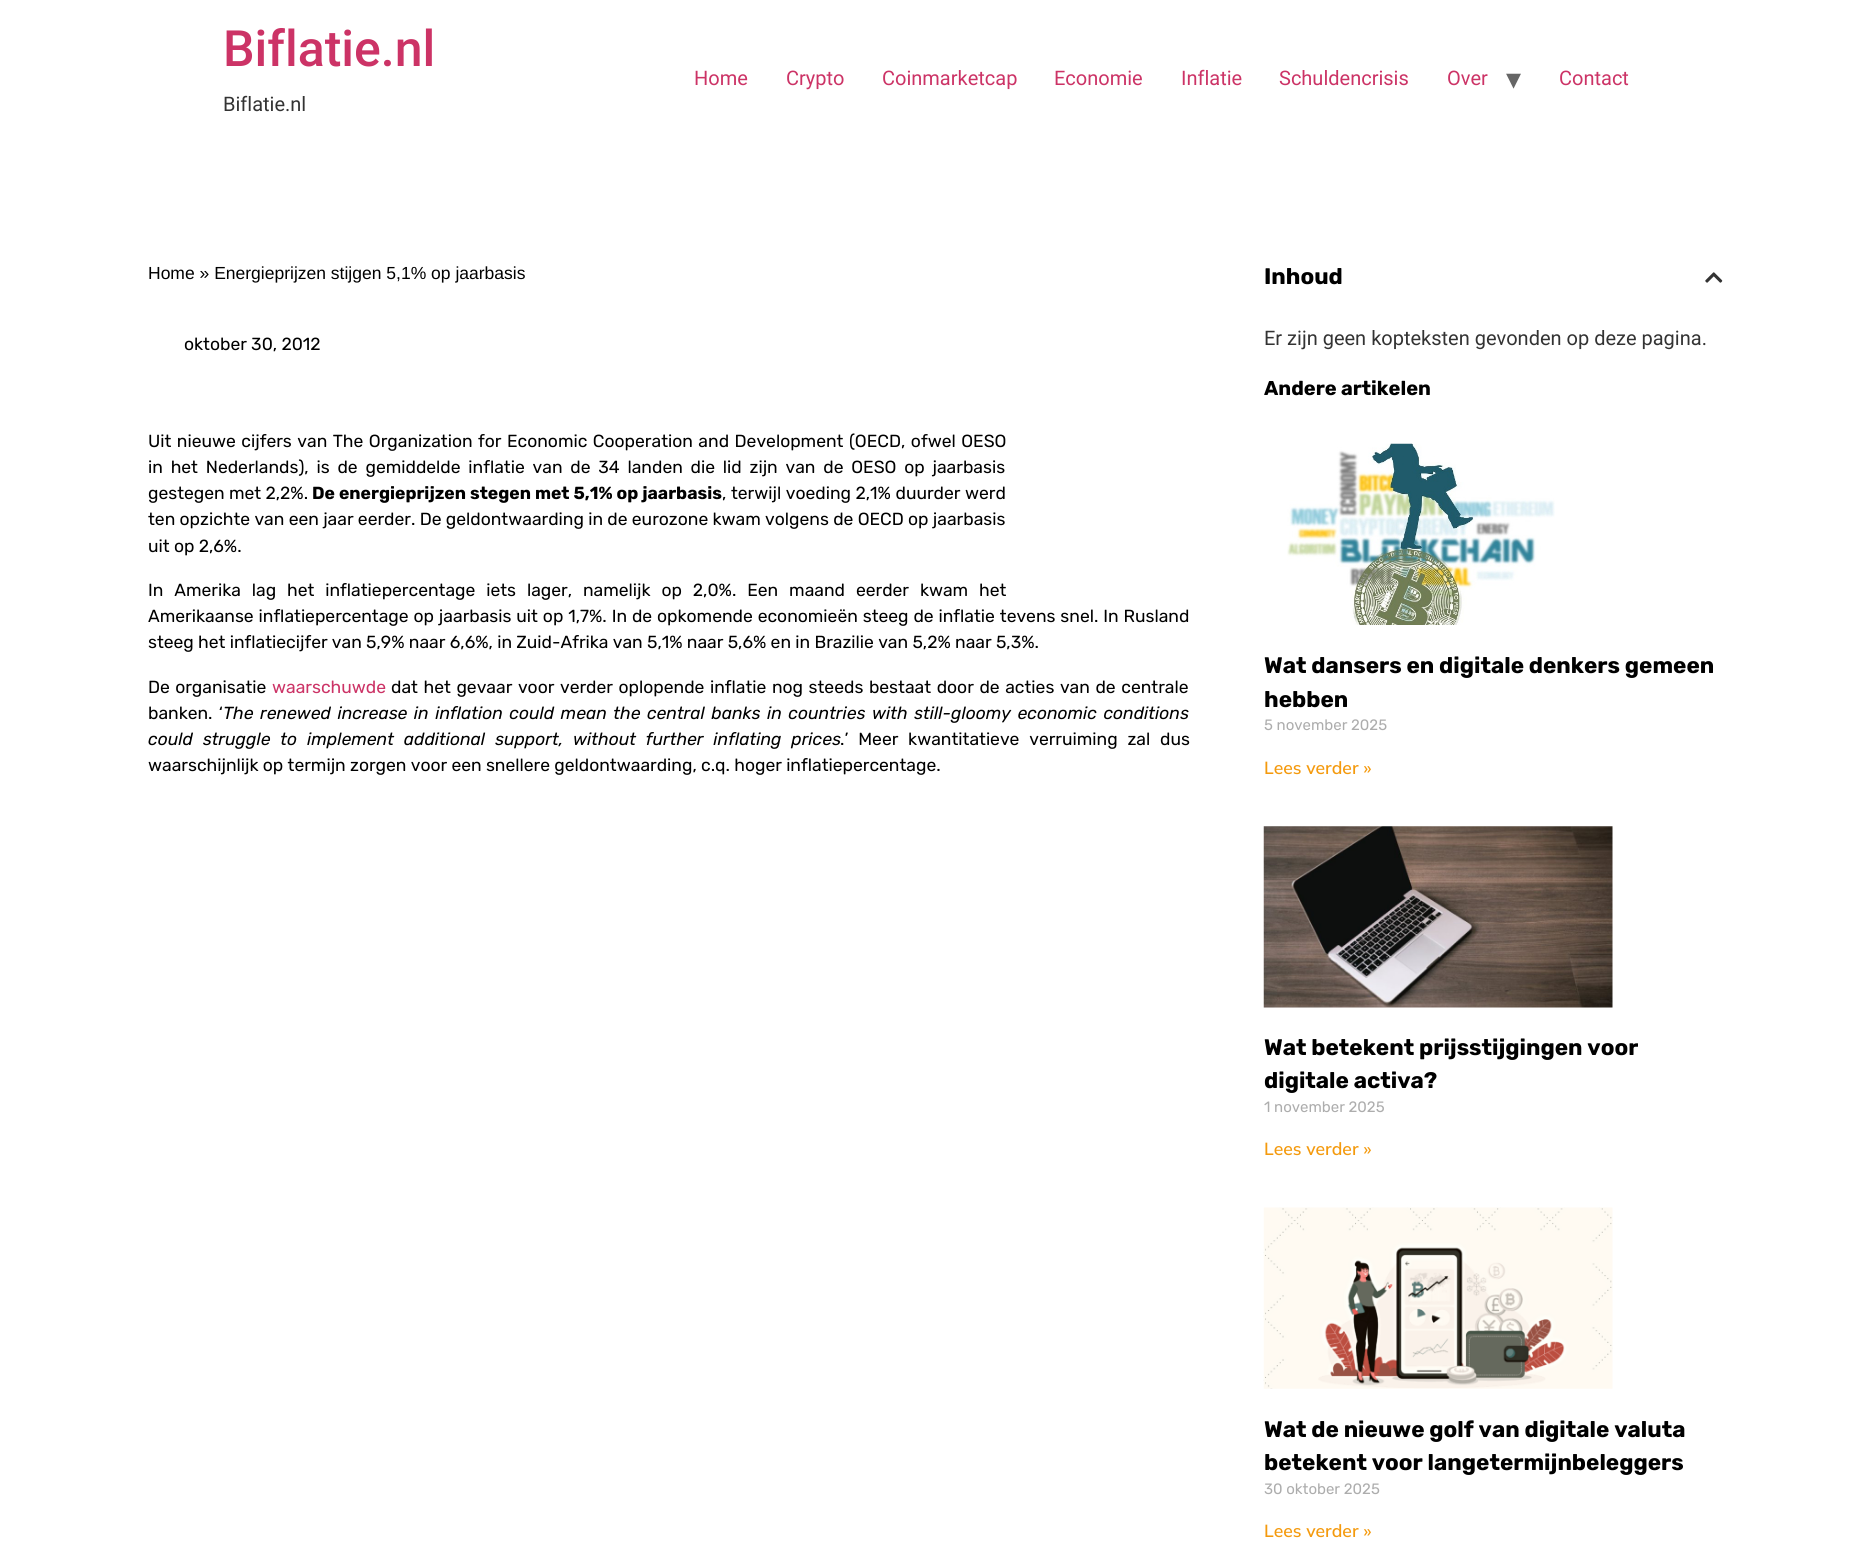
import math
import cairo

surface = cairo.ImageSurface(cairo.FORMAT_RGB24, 1870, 1548)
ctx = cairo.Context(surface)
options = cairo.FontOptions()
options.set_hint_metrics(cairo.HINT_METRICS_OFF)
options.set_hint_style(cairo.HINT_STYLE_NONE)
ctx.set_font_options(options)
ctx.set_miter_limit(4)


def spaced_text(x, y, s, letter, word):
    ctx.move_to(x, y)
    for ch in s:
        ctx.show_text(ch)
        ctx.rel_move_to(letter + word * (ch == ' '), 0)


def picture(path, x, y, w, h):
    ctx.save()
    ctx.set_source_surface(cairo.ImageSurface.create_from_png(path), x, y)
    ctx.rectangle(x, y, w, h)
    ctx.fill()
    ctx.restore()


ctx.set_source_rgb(1, 1, 1)
ctx.paint()
ctx.select_font_face("Roboto Medium")
ctx.set_font_size(50)
ctx.set_source_rgb(0.8, 0.2, 0.4)
ctx.move_to(223, 66)
ctx.show_text("Biflatie.nl")
ctx.select_font_face("Roboto")
ctx.set_font_size(20)
ctx.set_source_rgb(0.2, 0.2, 0.2)
ctx.move_to(223, 111)
ctx.show_text("Biflatie.nl")
ctx.set_source_rgb(0.8, 0.2, 0.4)
ctx.move_to(694, 85)
ctx.show_text("Home")
ctx.move_to(786, 85)
ctx.show_text("Crypto")
ctx.move_to(882, 85)
ctx.show_text("Coinmarketcap")
ctx.move_to(1054, 85)
ctx.show_text("Economie")
ctx.move_to(1181, 85)
ctx.show_text("Inflatie")
ctx.move_to(1279, 85)
ctx.show_text("Schuldencrisis")
ctx.move_to(1447, 85)
ctx.show_text("Over")
ctx.select_font_face("DejaVu Sans")
ctx.set_font_size(30)
ctx.set_source_rgb(0.4, 0.4, 0.4)
ctx.move_to(1506, 89)
ctx.show_text("▾")
ctx.select_font_face("Roboto")
ctx.set_font_size(20)
ctx.set_source_rgb(0.8, 0.2, 0.4)
ctx.move_to(1559, 85)
ctx.show_text("Contact")
ctx.select_font_face("Liberation Sans")
ctx.set_font_size(17.5)
ctx.set_source_rgb(0, 0, 0)
ctx.move_to(148, 279)
ctx.show_text("Home » Energieprijzen stijgen 5,1% op jaarbasis")
ctx.select_font_face("Rubik")
ctx.move_to(184, 350)
ctx.show_text("oktober 30, 2012")
spaced_text(148, 447, "Uit nieuwe cijfers van The Organization for Economic Cooperation and Development (OECD, ofwel OESO", 0, 1.2)
spaced_text(148, 473, "in het Nederlands), is de gemiddelde inflatie van de 34 landen die lid zijn van de OESO op jaarbasis", 0, 3.5)
ctx.move_to(148, 499)
ctx.show_text("gestegen met 2,2%.")
ctx.select_font_face("Rubik", cairo.FONT_SLANT_NORMAL, cairo.FONT_WEIGHT_BOLD)
spaced_text(312, 499, "De energieprijzen stegen met 5,1% op jaarbasis", 0, 0.25)
ctx.select_font_face("Rubik")
spaced_text(722, 499, ", terwijl voeding 2,1% duurder werd", 0, 0.25)
ctx.move_to(148, 525)
ctx.show_text("ten opzichte van een jaar eerder. De geldontwaarding in de eurozone kwam volgens de OECD op jaarbasis")
ctx.move_to(148, 552)
ctx.show_text("uit op 2,6%.")
spaced_text(148, 596, "In Amerika lag het inflatiepercentage iets lager, namelijk op 2,0%. Een maand eerder kwam het", 0, 6.6)
spaced_text(148, 622, "Amerikaanse inflatiepercentage op jaarbasis uit op 1,7%. In de opkomende economieën steeg de inflatie tevens snel. In Rusland", 0, 0.6)
ctx.move_to(148, 648)
ctx.show_text("steeg het inflatiecijfer van 5,9% naar 6,6%, in Zuid-Afrika van 5,1% naar 5,6% en in Brazilie van 5,2% naar 5,3%.")
spaced_text(148, 693, "De organisatie", 0, 1)
ctx.set_source_rgb(0.8, 0.2, 0.4)
ctx.move_to(272, 693)
ctx.show_text("waarschuwde")
ctx.set_source_rgb(0, 0, 0)
spaced_text(391, 693, "dat het gevaar voor verder oplopende inflatie nog steeds bestaat door de acties van de centrale", 0, 1.3)
spaced_text(148, 719, "banken. ‘", 0, 2)
ctx.select_font_face("Rubik", cairo.FONT_SLANT_ITALIC)
spaced_text(223, 719, "The renewed increase in inflation could mean the central banks in countries with still-gloomy economic conditions", 0, 2.1)
spaced_text(148, 745, "could struggle to implement additional support, without further inflating prices", 0, 5.5)
ctx.select_font_face("Rubik")
spaced_text(840, 745, ".’ Meer kwantitatieve verruiming zal dus", 0, 5.5)
ctx.move_to(148, 771)
ctx.show_text("waarschijnlijk op termijn zorgen voor een snellere geldontwaarding, c.q. hoger inflatiepercentage.")
ctx.select_font_face("Rubik", cairo.FONT_SLANT_NORMAL, cairo.FONT_WEIGHT_BOLD)
ctx.set_font_size(22.5)
ctx.move_to(1264, 284)
ctx.show_text("Inhoud")
picture("img1.png", 1705, 272, 18, 11)
ctx.select_font_face("Roboto")
ctx.set_font_size(20)
ctx.set_source_rgb(0.2, 0.2, 0.2)
ctx.move_to(1264, 345)
ctx.show_text("Er zijn geen kopteksten gevonden op deze pagina.")
ctx.select_font_face("Rubik", cairo.FONT_SLANT_NORMAL, cairo.FONT_WEIGHT_BOLD)
ctx.set_source_rgb(0, 0, 0)
ctx.move_to(1264, 395)
ctx.show_text("Andere artikelen")
picture("img2.png", 1287, 443, 268, 182)
ctx.set_font_size(22.5)
ctx.move_to(1264, 673)
ctx.show_text("Wat dansers en digitale denkers gemeen")
ctx.move_to(1264, 707)
ctx.show_text("hebben")
ctx.select_font_face("Rubik")
ctx.set_font_size(15)
ctx.set_source_rgb(0.678, 0.678, 0.678)
ctx.move_to(1264, 730)
ctx.show_text("5 november 2025")
ctx.select_font_face("Mulish SemiBold")
ctx.set_font_size(17.5)
ctx.set_source_rgb(0.957, 0.604, 0.055)
ctx.move_to(1264, 774)
ctx.show_text("Lees verder »")
picture("img3.png", 1263, 826, 350, 182)
ctx.select_font_face("Rubik", cairo.FONT_SLANT_NORMAL, cairo.FONT_WEIGHT_BOLD)
ctx.set_font_size(22.5)
ctx.set_source_rgb(0, 0, 0)
ctx.move_to(1264, 1055)
ctx.show_text("Wat betekent prijsstijgingen voor")
ctx.move_to(1264, 1088)
ctx.show_text("digitale activa?")
ctx.select_font_face("Rubik")
ctx.set_font_size(15)
ctx.set_source_rgb(0.678, 0.678, 0.678)
ctx.move_to(1264, 1112)
ctx.show_text("1 november 2025")
ctx.select_font_face("Mulish SemiBold")
ctx.set_font_size(17.5)
ctx.set_source_rgb(0.957, 0.604, 0.055)
ctx.move_to(1264, 1155)
ctx.show_text("Lees verder »")
picture("img4.png", 1263, 1207, 350, 182)
ctx.select_font_face("Rubik", cairo.FONT_SLANT_NORMAL, cairo.FONT_WEIGHT_BOLD)
ctx.set_font_size(22.5)
ctx.set_source_rgb(0, 0, 0)
ctx.move_to(1264, 1437)
ctx.show_text("Wat de nieuwe golf van digitale valuta")
ctx.move_to(1264, 1470)
ctx.show_text("betekent voor langetermijnbeleggers")
ctx.select_font_face("Rubik")
ctx.set_font_size(15)
ctx.set_source_rgb(0.678, 0.678, 0.678)
ctx.move_to(1264, 1494)
ctx.show_text("30 oktober 2025")
ctx.select_font_face("Mulish SemiBold")
ctx.set_font_size(17.5)
ctx.set_source_rgb(0.957, 0.604, 0.055)
ctx.move_to(1264, 1537)
ctx.show_text("Lees verder »")
surface.write_to_png("page.png")
